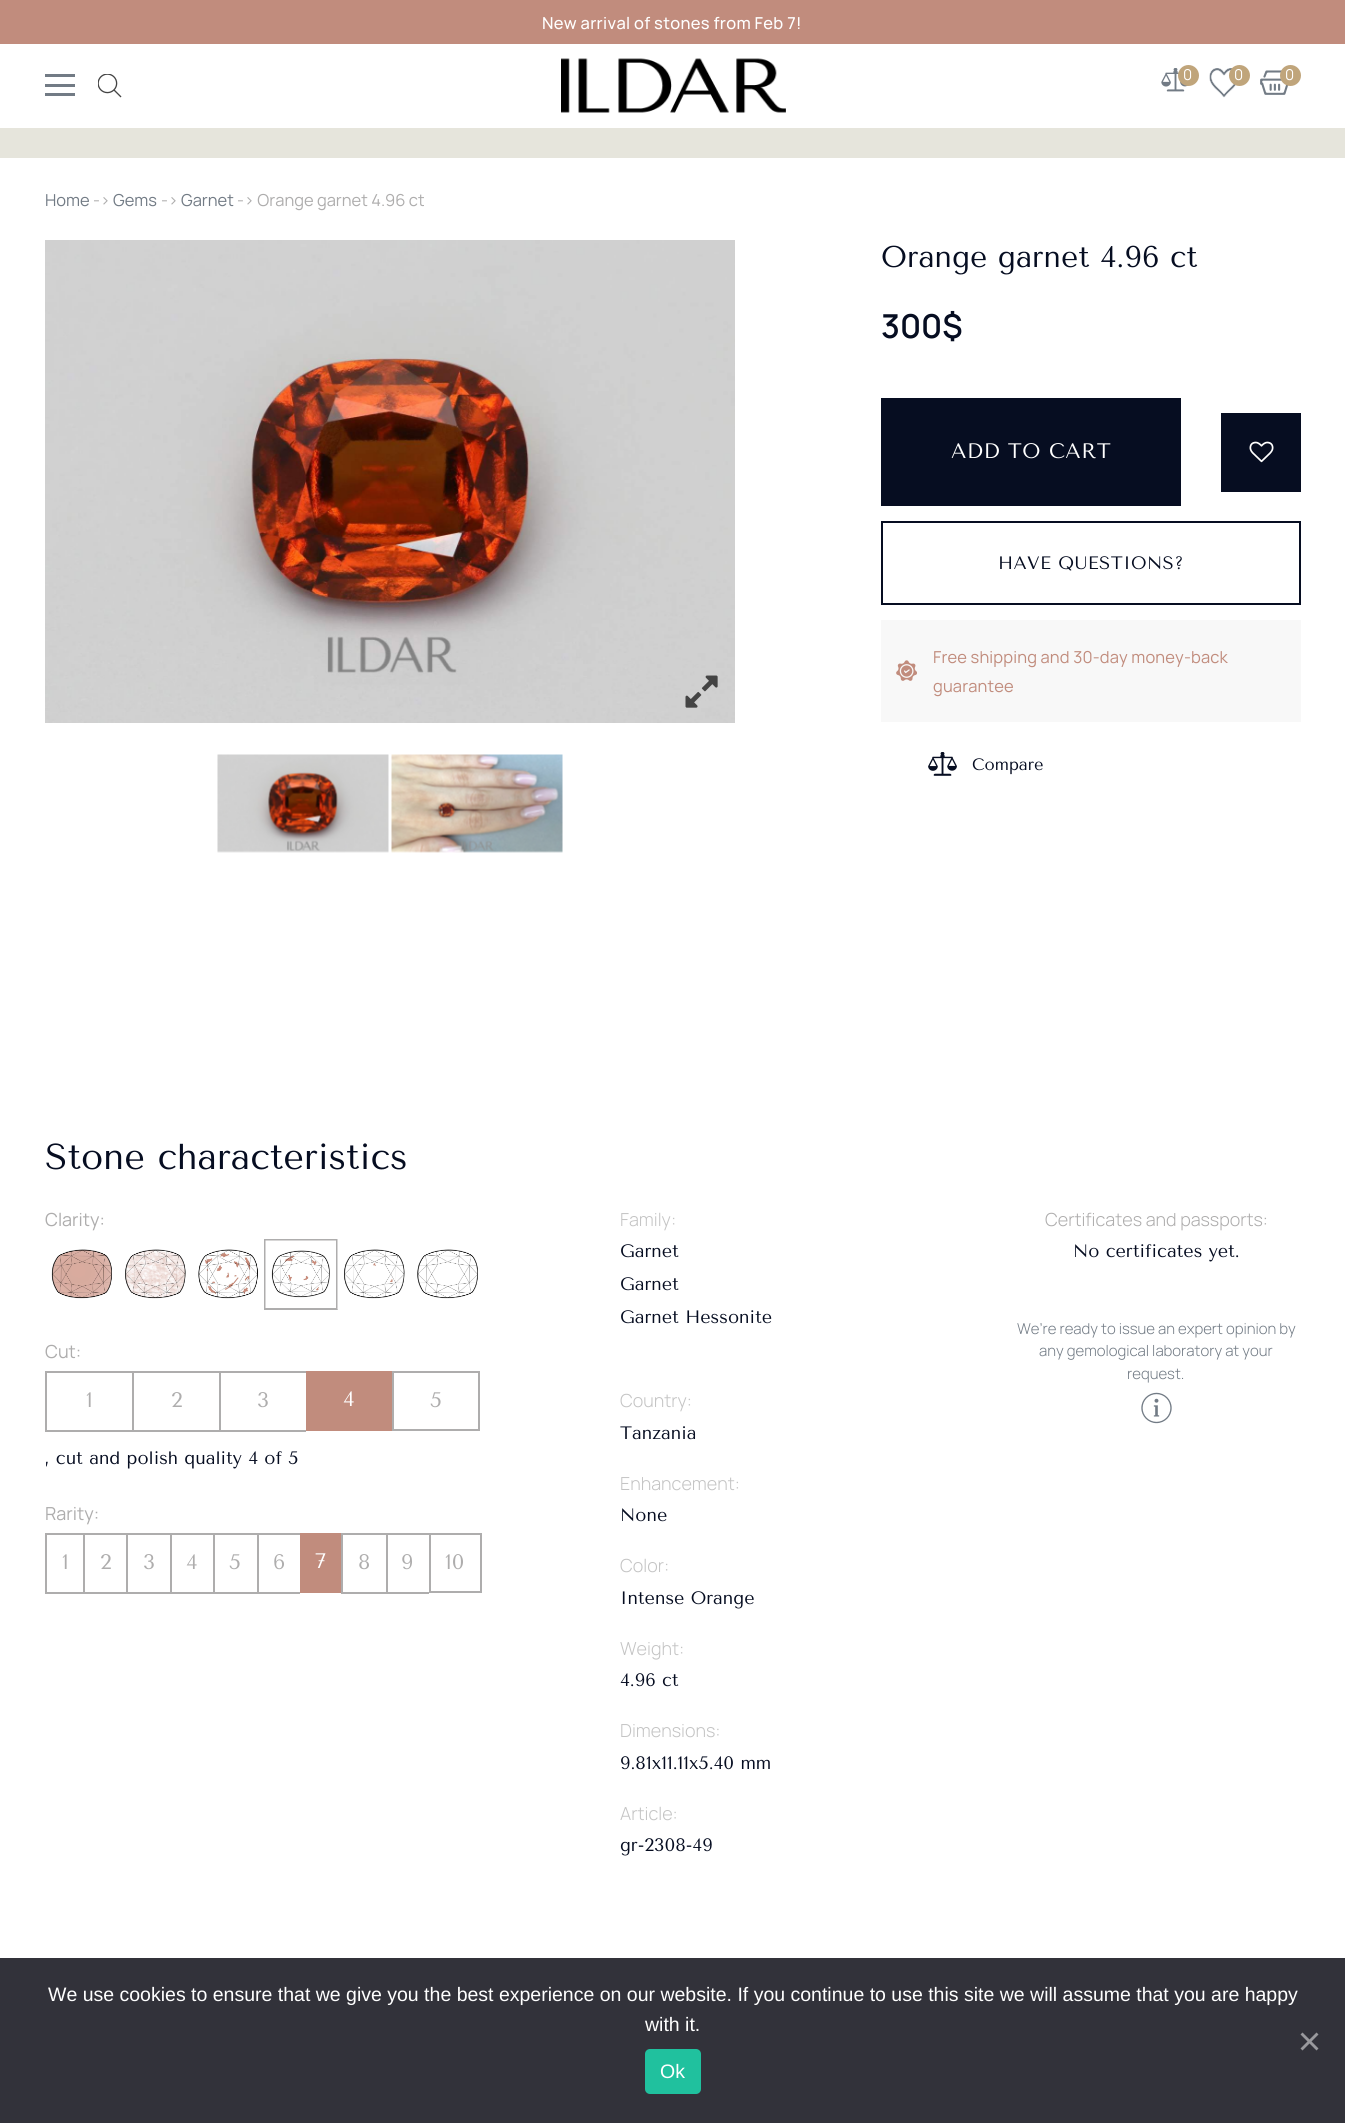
import math
import cairo

surface = cairo.ImageSurface(cairo.FORMAT_RGB24, 1345, 2123)
ctx = cairo.Context(surface)
options = cairo.FontOptions()
options.set_hint_metrics(cairo.HINT_METRICS_OFF)
options.set_hint_style(cairo.HINT_STYLE_NONE)
ctx.set_font_options(options)
ctx.set_miter_limit(4)


def spaced_text(x, y, s, letter, word):
    ctx.move_to(x, y)
    for ch in s:
        ctx.show_text(ch)
        ctx.rel_move_to(letter + word * (ch == ' '), 0)


def round_rect(x, y, w, h, r):
    ctx.new_sub_path()
    for i, (u, v) in enumerate([(x + w - r, y + h - r), (x + r, y + h - r), (x + r, y + r), (x + w - r, y + r)]):
        ctx.arc(u, v, r, i * math.pi / 2, (i + 1) * math.pi / 2)
    ctx.close_path()


def picture(path, x, y, w, h):
    ctx.save()
    ctx.set_source_surface(cairo.ImageSurface.create_from_png(path), x, y)
    ctx.rectangle(x, y, w, h)
    ctx.fill()
    ctx.restore()


ctx.set_source_rgb(0.902, 0.898, 0.863)
ctx.paint()
ctx.set_source_rgb(1, 1, 1)
ctx.rectangle(0, 44, 1345, 84)
ctx.fill()
ctx.set_source_rgb(0.757, 0.549, 0.49)
ctx.rectangle(0, 0, 1345, 44)
ctx.fill()
ctx.select_font_face("Manrope Medium")
ctx.set_font_size(16.5)
ctx.set_source_rgb(1, 1, 1)
spaced_text(542, 29, "New arrival of stones from Feb 7!", 0.3, 0)
ctx.set_source_rgb(0.447, 0.482, 0.522)
ctx.rectangle(45, 74, 30, 3)
ctx.fill()
ctx.rectangle(45, 84, 30, 3)
ctx.fill()
ctx.rectangle(45, 93, 30, 3)
ctx.fill()
picture("img1.png", 98, 74, 24, 24)
picture("img2.png", 561, 58, 225, 55)
picture("img3.png", 1161, 68, 27, 24)
ctx.set_source_rgb(0.753, 0.647, 0.482)
ctx.arc(1188.5, 75.5, 9.5, 0, 2 * math.pi)
ctx.fill_preserve()
ctx.stroke()
ctx.select_font_face("Manrope")
ctx.set_font_size(15)
ctx.set_source_rgb(1, 1, 1)
ctx.move_to(1183, 80)
ctx.show_text("0")
picture("img4.png", 1209, 68, 28, 30)
ctx.set_source_rgb(0.753, 0.647, 0.482)
ctx.arc(1239.5, 75.5, 9.5, 0, 2 * math.pi)
ctx.fill_preserve()
ctx.stroke()
ctx.set_source_rgb(1, 1, 1)
ctx.move_to(1234, 80)
ctx.show_text("0")
picture("img5.png", 1260, 70, 29, 25)
ctx.set_source_rgb(0.753, 0.647, 0.482)
ctx.arc(1290.5, 75.5, 9.5, 0, 2 * math.pi)
ctx.fill_preserve()
ctx.stroke()
ctx.set_source_rgb(1, 1, 1)
ctx.move_to(1285, 80)
ctx.show_text("0")
ctx.rectangle(0, 158, 1345, 1800)
ctx.fill()
ctx.set_font_size(16.5)
ctx.set_source_rgb(0.447, 0.482, 0.522)
ctx.move_to(45, 206)
ctx.show_text("Home")
ctx.set_source_rgb(0.682, 0.678, 0.678)
ctx.move_to(93, 206)
ctx.show_text("->")
ctx.set_source_rgb(0.447, 0.482, 0.522)
ctx.move_to(113, 206)
ctx.show_text("Gems")
ctx.set_source_rgb(0.682, 0.678, 0.678)
ctx.move_to(161, 206)
ctx.show_text("->")
ctx.set_source_rgb(0.447, 0.482, 0.522)
ctx.move_to(181, 206)
ctx.show_text("Garnet")
ctx.set_source_rgb(0.682, 0.678, 0.678)
ctx.move_to(237, 206)
ctx.show_text("-> Orange garnet 4.96 ct")
picture("img6.png", 45, 240, 690, 483)
picture("img7.png", 685, 675, 33, 33)
picture("img8.png", 217, 754, 172, 99)
picture("img9.png", 391, 754, 172, 99)
ctx.select_font_face("Tenor Sans")
ctx.set_font_size(30)
ctx.set_source_rgb(0.024, 0.051, 0.129)
ctx.move_to(881, 267)
ctx.show_text("Orange garnet 4.96 ct")
ctx.select_font_face("Manrope SemiBold")
ctx.set_font_size(33)
ctx.move_to(881, 338)
ctx.show_text("300$")
ctx.rectangle(881, 398, 300, 108)
ctx.fill()
ctx.select_font_face("Tenor Sans")
ctx.set_font_size(21)
ctx.set_source_rgb(1, 1, 1)
spaced_text(951, 458, "ADD TO CART", 0.5, 0)
ctx.set_source_rgb(0.024, 0.051, 0.129)
ctx.rectangle(1221, 413, 80, 79)
ctx.fill()
picture("img10.png", 1249, 441, 25, 22)
ctx.rectangle(882, 522, 418, 82)
ctx.stroke()
ctx.set_font_size(18)
spaced_text(998, 569, "HAVE QUESTIONS?", 0.4, 0)
ctx.set_source_rgb(0.969, 0.969, 0.969)
ctx.rectangle(881, 620, 420, 102)
ctx.fill()
picture("img11.png", 896, 660, 21, 21)
ctx.select_font_face("Manrope")
ctx.set_font_size(16.5)
ctx.set_source_rgb(0.757, 0.549, 0.49)
spaced_text(933, 663, "Free shipping and 30-day money-back", 0.15, 0)
spaced_text(933, 692, "guarantee", 0.15, 0)
picture("img12.png", 928, 752, 29, 24)
ctx.select_font_face("Tenor Sans")
ctx.set_source_rgb(0.024, 0.051, 0.129)
ctx.move_to(972, 770)
ctx.show_text("Compare")
ctx.set_font_size(36)
ctx.move_to(45, 1169)
ctx.show_text("Stone characteristics")
ctx.select_font_face("Manrope")
ctx.set_font_size(18)
ctx.set_source_rgb(0.682, 0.678, 0.678)
ctx.move_to(45, 1226)
ctx.show_text("Clarity:")
picture("img13.png", 51, 1249, 61, 50)
picture("img14.png", 125, 1249, 61, 50)
picture("img15.png", 198, 1249, 60, 50)
ctx.rectangle(265, 1240, 72, 69)
ctx.stroke()
picture("img16.png", 265, 1240, 71, 68)
picture("img17.png", 337, 1239, 68, 71)
picture("img18.png", 417, 1249, 61, 50)
ctx.move_to(45, 1358)
ctx.show_text("Cut:")
ctx.rectangle(45, 1371, 261, 2)
ctx.fill()
ctx.rectangle(45, 1430, 261, 2)
ctx.fill()
ctx.rectangle(45, 1371, 2, 60)
ctx.fill()
ctx.select_font_face("Tenor Sans")
ctx.set_font_size(21)
ctx.move_to(86, 1407)
ctx.show_text("1")
ctx.rectangle(132, 1371, 2, 60)
ctx.fill()
ctx.move_to(171, 1407)
ctx.show_text("2")
ctx.rectangle(219, 1371, 2, 60)
ctx.fill()
ctx.move_to(257, 1407)
ctx.show_text("3")
ctx.set_source_rgb(0.757, 0.549, 0.49)
ctx.rectangle(306, 1371, 86, 60)
ctx.fill()
ctx.set_source_rgb(1, 1, 1)
ctx.move_to(343, 1406)
ctx.show_text("4")
ctx.rectangle(393, 1372, 86, 58)
ctx.set_source_rgb(0.682, 0.678, 0.678)
ctx.stroke()
ctx.move_to(430, 1407)
ctx.show_text("5")
ctx.set_font_size(18)
ctx.set_source_rgb(0.024, 0.051, 0.129)
ctx.move_to(45, 1464)
ctx.show_text(", cut and polish quality 4 of 5")
ctx.select_font_face("Manrope")
ctx.set_source_rgb(0.682, 0.678, 0.678)
ctx.move_to(45, 1520)
ctx.show_text("Rarity:")
ctx.rectangle(45, 1533, 255, 2)
ctx.fill()
ctx.rectangle(45, 1592, 255, 2)
ctx.fill()
ctx.rectangle(45, 1533, 2, 60)
ctx.fill()
ctx.select_font_face("Tenor Sans")
ctx.set_font_size(21)
ctx.move_to(62, 1569)
ctx.show_text("1")
ctx.rectangle(83, 1533, 2, 60)
ctx.fill()
ctx.move_to(100, 1569)
ctx.show_text("2")
ctx.rectangle(126, 1533, 2, 60)
ctx.fill()
ctx.move_to(143, 1569)
ctx.show_text("3")
ctx.rectangle(170, 1533, 2, 60)
ctx.fill()
ctx.move_to(186, 1569)
ctx.show_text("4")
ctx.rectangle(213, 1533, 2, 60)
ctx.fill()
ctx.move_to(229, 1569)
ctx.show_text("5")
ctx.rectangle(257, 1533, 2, 60)
ctx.fill()
ctx.move_to(273, 1569)
ctx.show_text("6")
ctx.set_source_rgb(0.757, 0.549, 0.49)
ctx.rectangle(300, 1533, 41, 60)
ctx.fill()
ctx.set_source_rgb(1, 1, 1)
ctx.move_to(315, 1568)
ctx.show_text("7")
ctx.set_source_rgb(0.682, 0.678, 0.678)
ctx.rectangle(341, 1533, 88, 2)
ctx.fill()
ctx.rectangle(341, 1592, 88, 2)
ctx.fill()
ctx.rectangle(341, 1533, 2, 60)
ctx.fill()
ctx.move_to(358, 1569)
ctx.show_text("8")
ctx.rectangle(386, 1533, 2, 60)
ctx.fill()
ctx.move_to(401, 1569)
ctx.show_text("9")
ctx.rectangle(430, 1534, 51, 58)
ctx.stroke()
ctx.move_to(445, 1569)
ctx.show_text("10")
ctx.select_font_face("Manrope Light")
ctx.set_font_size(18)
ctx.set_source_rgb(0.769, 0.769, 0.769)
ctx.move_to(620, 1226)
ctx.show_text("Family:")
ctx.select_font_face("Tenor Sans")
ctx.set_source_rgb(0.024, 0.051, 0.129)
ctx.move_to(620, 1257)
ctx.show_text("Garnet")
ctx.move_to(620, 1290)
ctx.show_text("Garnet")
ctx.move_to(620, 1323)
ctx.show_text("Garnet Hessonite")
ctx.select_font_face("Manrope Light")
ctx.set_source_rgb(0.769, 0.769, 0.769)
ctx.move_to(620, 1407)
ctx.show_text("Country:")
ctx.select_font_face("Tenor Sans")
ctx.set_source_rgb(0.024, 0.051, 0.129)
ctx.move_to(620, 1439)
ctx.show_text("Tanzania")
ctx.select_font_face("Manrope Light")
ctx.set_source_rgb(0.769, 0.769, 0.769)
ctx.move_to(620, 1490)
ctx.show_text("Enhancement:")
ctx.select_font_face("Tenor Sans")
ctx.set_source_rgb(0.024, 0.051, 0.129)
ctx.move_to(620, 1521)
ctx.show_text("None")
ctx.select_font_face("Manrope Light")
ctx.set_source_rgb(0.769, 0.769, 0.769)
ctx.move_to(620, 1572)
ctx.show_text("Color:")
ctx.select_font_face("Tenor Sans")
ctx.set_source_rgb(0.024, 0.051, 0.129)
ctx.move_to(620, 1604)
ctx.show_text("Intense Orange")
ctx.select_font_face("Manrope Light")
ctx.set_source_rgb(0.769, 0.769, 0.769)
ctx.move_to(620, 1655)
ctx.show_text("Weight:")
ctx.select_font_face("Tenor Sans")
ctx.set_source_rgb(0.024, 0.051, 0.129)
ctx.move_to(620, 1686)
ctx.show_text("4.96 ct")
ctx.select_font_face("Manrope Light")
ctx.set_source_rgb(0.769, 0.769, 0.769)
ctx.move_to(620, 1737)
ctx.show_text("Dimensions:")
ctx.select_font_face("Tenor Sans")
ctx.set_source_rgb(0.024, 0.051, 0.129)
ctx.move_to(620, 1769)
ctx.show_text("9.81х11.11х5.40 mm")
ctx.select_font_face("Manrope Light")
ctx.set_source_rgb(0.769, 0.769, 0.769)
ctx.move_to(620, 1820)
ctx.show_text("Article:")
ctx.select_font_face("Tenor Sans")
ctx.set_source_rgb(0.024, 0.051, 0.129)
ctx.move_to(620, 1851)
ctx.show_text("gr-2308-49")
ctx.select_font_face("Manrope Light")
ctx.set_source_rgb(0.682, 0.678, 0.678)
ctx.move_to(1045, 1226)
ctx.show_text("Certificates and passports:")
ctx.select_font_face("Tenor Sans")
ctx.set_source_rgb(0.024, 0.051, 0.129)
ctx.move_to(1073, 1257)
ctx.show_text("No certificates yet.")
ctx.select_font_face("Manrope Light")
ctx.set_font_size(15)
ctx.set_source_rgb(0.447, 0.482, 0.522)
ctx.move_to(1017, 1334)
ctx.show_text("We’re ready to issue an expert opinion by")
ctx.move_to(1039, 1356)
ctx.show_text("any gemological laboratory at your")
ctx.move_to(1127, 1379)
ctx.show_text("request.")
picture("img19.png", 1141, 1392, 31, 32)
ctx.set_source_rgb(0.196, 0.196, 0.227)
ctx.rectangle(0, 1958, 1345, 165)
ctx.fill()
ctx.select_font_face("Liberation Sans")
ctx.set_font_size(19.5)
ctx.set_source_rgb(1, 1, 1)
ctx.move_to(48, 2001)
ctx.show_text("We use cookies to ensure that we give you the best experience on our website. If you continue to use this site we will assume that you are happy")
ctx.move_to(645, 2031)
ctx.show_text("with it.")
ctx.set_source_rgb(0.6, 0.6, 0.616)
ctx.new_path()
ctx.move_to(1316.5, 2032.5)
ctx.line_to(1318.5, 2034.5)
ctx.line_to(1302.5, 2050.5)
ctx.line_to(1300.5, 2048.5)
ctx.close_path()
ctx.fill()
ctx.new_path()
ctx.move_to(1300.5, 2034.5)
ctx.line_to(1302.5, 2032.5)
ctx.line_to(1318.5, 2048.5)
ctx.line_to(1316.5, 2050.5)
ctx.close_path()
ctx.fill()
ctx.set_source_rgb(0.125, 0.757, 0.62)
round_rect(645, 2049, 56, 45, 5)
ctx.fill()
ctx.set_source_rgb(1, 1, 1)
ctx.move_to(660, 2078)
ctx.show_text("Ok")
surface.write_to_png("page.png")
